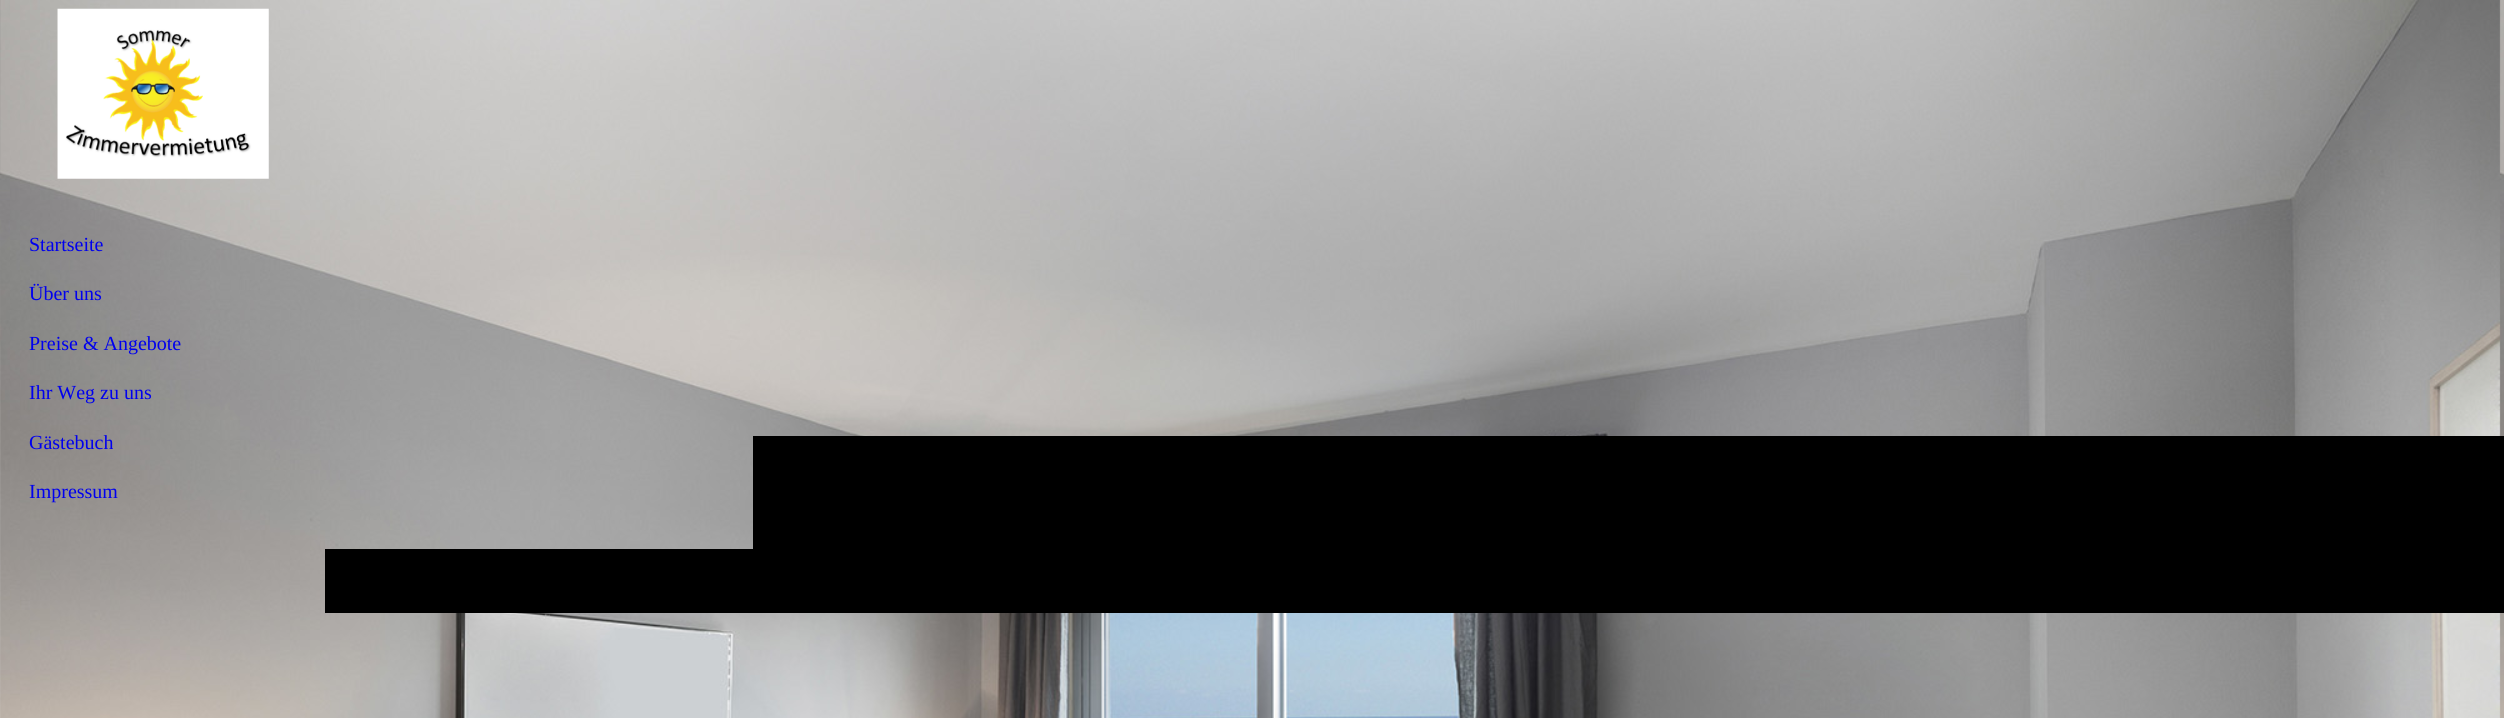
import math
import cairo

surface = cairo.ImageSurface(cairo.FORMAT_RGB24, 2504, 718)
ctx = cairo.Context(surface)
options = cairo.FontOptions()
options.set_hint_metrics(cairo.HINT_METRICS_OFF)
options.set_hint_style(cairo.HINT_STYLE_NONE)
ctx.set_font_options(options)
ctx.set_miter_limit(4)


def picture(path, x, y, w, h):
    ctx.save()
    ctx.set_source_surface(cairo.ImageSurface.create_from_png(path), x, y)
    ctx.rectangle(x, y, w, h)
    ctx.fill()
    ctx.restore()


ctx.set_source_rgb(1, 1, 1)
ctx.paint()
picture("img1.png", 0, 0, 2504, 718)
picture("img2.png", 57, 8, 212, 171)
ctx.select_font_face("Liberation Serif")
ctx.set_font_size(20)
ctx.set_source_rgb(0, 0, 0.933)
ctx.move_to(29, 251)
ctx.show_text("Startseite")
ctx.move_to(29, 300)
ctx.show_text("Über uns")
ctx.move_to(29, 350)
ctx.show_text("Preise & Angebote")
ctx.move_to(29, 399)
ctx.show_text("Ihr Weg zu uns")
ctx.move_to(29, 449)
ctx.show_text("Gästebuch")
ctx.move_to(29, 498)
ctx.show_text("Impressum")
ctx.set_source_rgb(0, 0, 0)
ctx.rectangle(325, 549, 428, 64)
ctx.fill()
ctx.rectangle(753, 436, 1751, 177)
ctx.fill()
surface.write_to_png("page.png")
